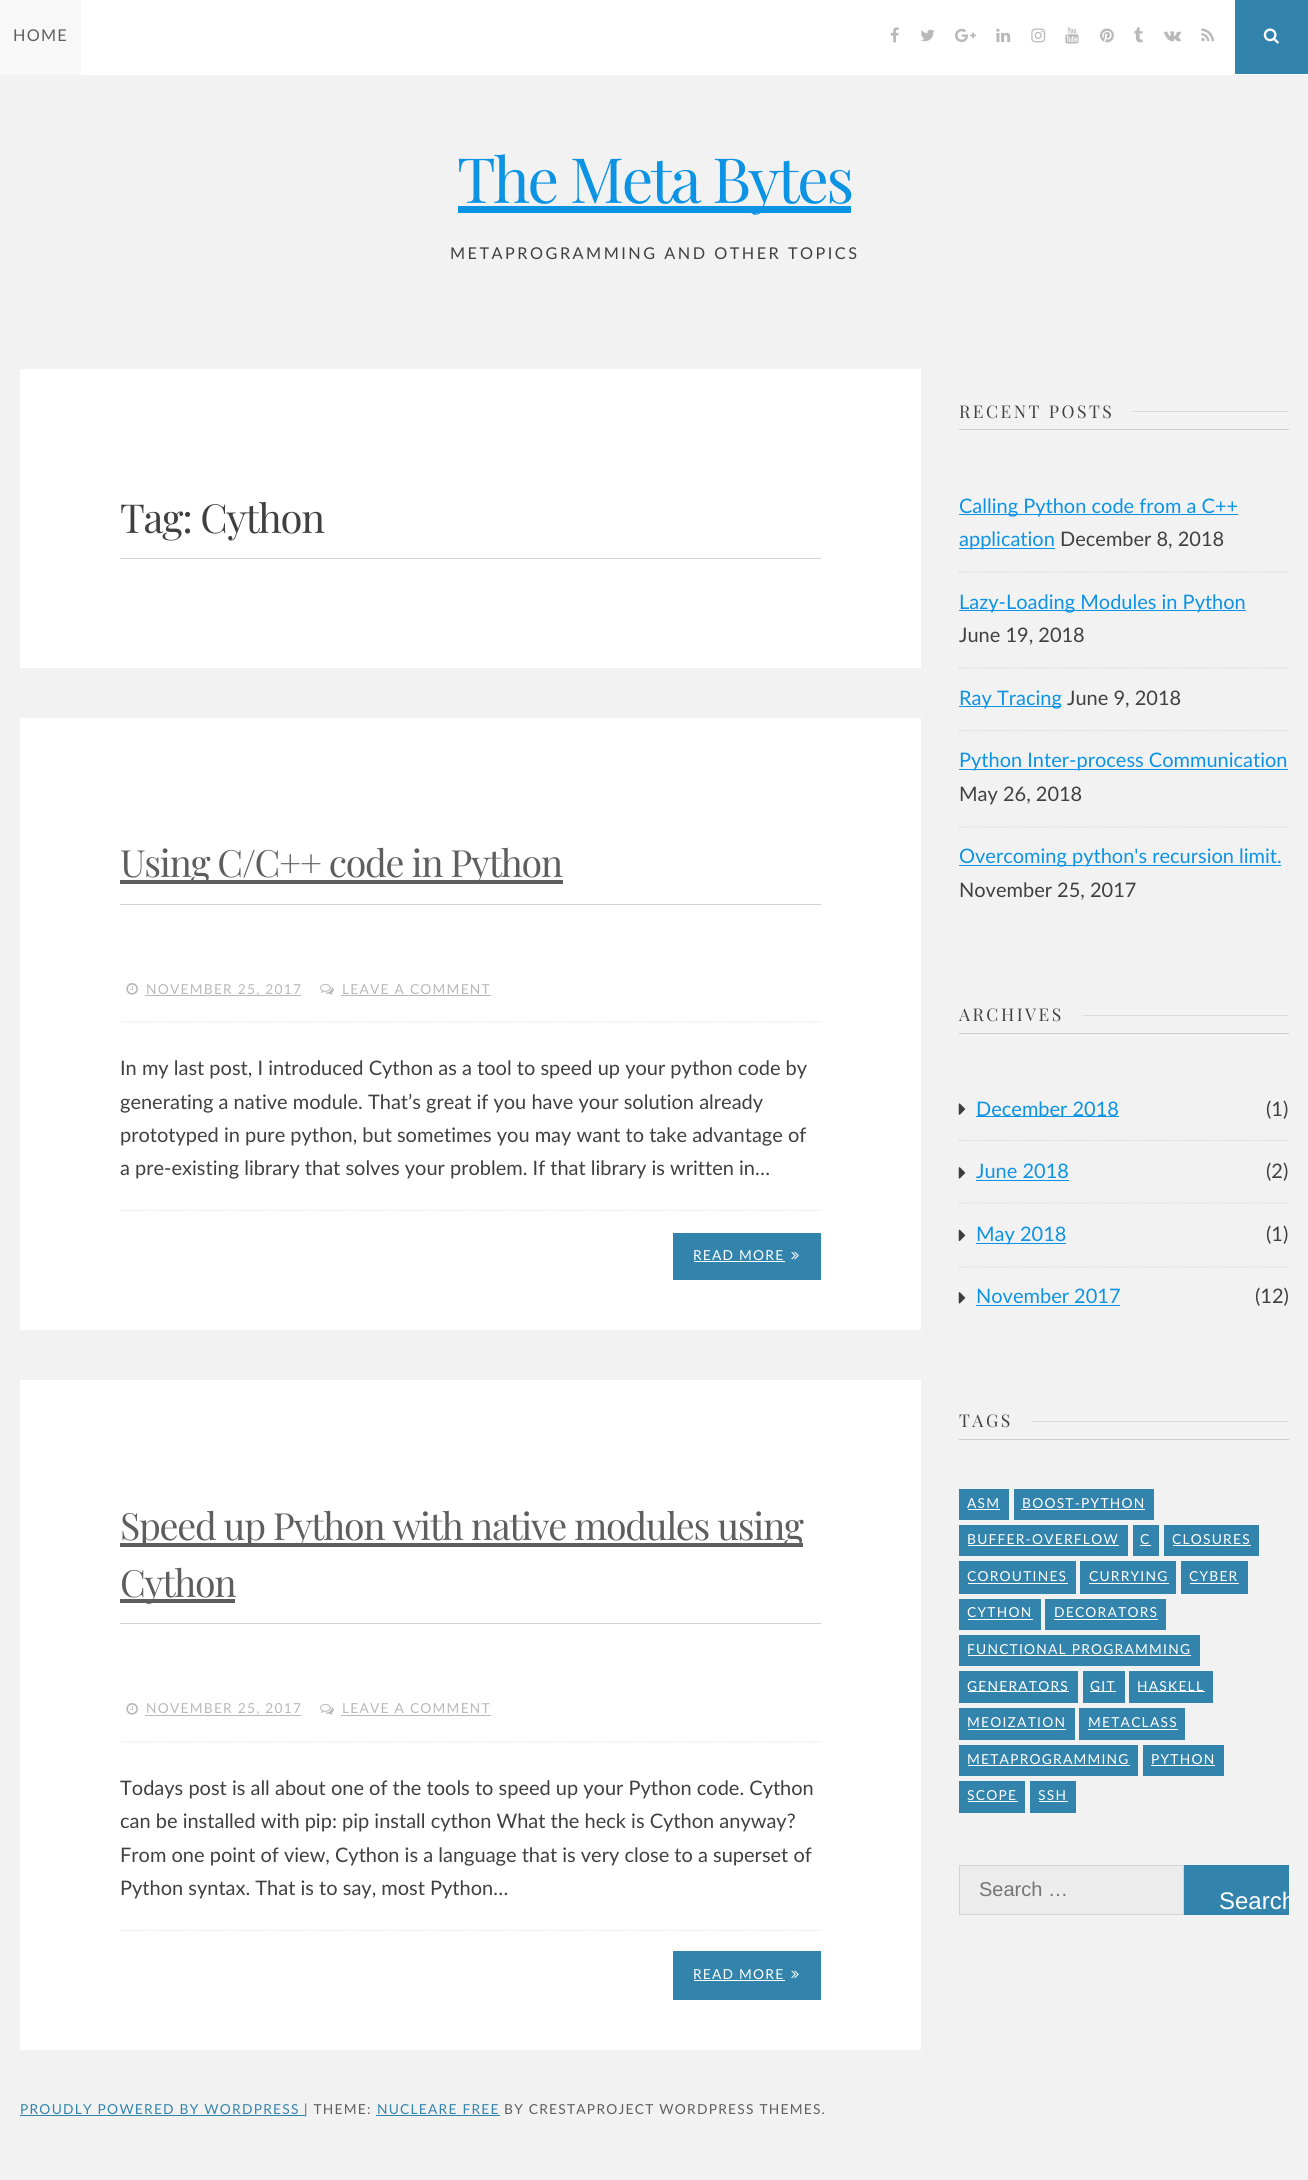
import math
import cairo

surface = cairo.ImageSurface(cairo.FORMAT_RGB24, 1308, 2180)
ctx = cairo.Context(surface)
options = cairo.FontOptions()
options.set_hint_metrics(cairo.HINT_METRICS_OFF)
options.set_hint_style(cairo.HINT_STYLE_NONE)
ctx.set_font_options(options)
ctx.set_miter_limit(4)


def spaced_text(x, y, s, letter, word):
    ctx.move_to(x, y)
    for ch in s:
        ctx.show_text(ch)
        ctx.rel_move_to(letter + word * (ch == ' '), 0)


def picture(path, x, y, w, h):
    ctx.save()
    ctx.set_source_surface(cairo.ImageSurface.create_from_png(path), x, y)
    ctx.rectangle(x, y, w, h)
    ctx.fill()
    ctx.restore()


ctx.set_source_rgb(0.949, 0.949, 0.949)
ctx.paint()
ctx.set_source_rgb(1, 1, 1)
ctx.rectangle(81, 0, 1227, 75)
ctx.fill()
ctx.set_source_rgb(0.969, 0.969, 0.969)
ctx.rectangle(0, 0, 81, 75)
ctx.fill()
ctx.select_font_face("Lato")
ctx.set_font_size(16.25)
ctx.set_source_rgb(0.369, 0.369, 0.369)
spaced_text(13, 41, "HOME", 1.25, 0)
picture("img1.png", 890, 27, 9, 16)
picture("img2.png", 920, 29, 15, 13)
picture("img3.png", 955, 28, 21, 15)
picture("img4.png", 996, 28, 15, 14)
picture("img5.png", 1031, 28, 15, 15)
picture("img6.png", 1065, 27, 14, 17)
picture("img7.png", 1100, 28, 14, 15)
picture("img8.png", 1134, 27, 9, 16)
picture("img9.png", 1163, 31, 19, 11)
picture("img10.png", 1201, 28, 13, 14)
ctx.set_source_rgb(0.196, 0.518, 0.678)
ctx.rectangle(1235, 0, 73, 74)
ctx.fill()
picture("img11.png", 1263, 28, 16, 16)
ctx.set_source_rgb(0.047, 0.576, 0.894)
ctx.rectangle(458, 206, 393, 7)
ctx.fill()
ctx.select_font_face("Playfair Display")
ctx.set_font_size(62.5)
spaced_text(457, 203, "The Meta Bytes", -2.5, 0)
ctx.select_font_face("Lato")
ctx.set_font_size(16.25)
ctx.set_source_rgb(0.251, 0.251, 0.251)
spaced_text(450, 259, "METAPROGRAMMING AND OTHER TOPICS", 2.5, 0)
ctx.set_source_rgb(1, 1, 1)
ctx.rectangle(20, 369, 901, 299)
ctx.fill()
ctx.select_font_face("Playfair Display")
ctx.set_font_size(40)
ctx.set_source_rgb(0.251, 0.251, 0.251)
spaced_text(120, 533, "Tag: Cython", -1.25, 0)
ctx.set_source_rgb(0.835, 0.835, 0.835)
ctx.rectangle(120, 558, 701, 1)
ctx.fill()
ctx.set_source_rgb(1, 1, 1)
ctx.rectangle(20, 718, 901, 612)
ctx.fill()
ctx.set_source_rgb(0.369, 0.369, 0.369)
ctx.rectangle(120, 880, 443, 4)
ctx.fill()
ctx.set_font_size(37.5)
spaced_text(120, 877, "Using C/C++ code in Python", -1.25, 0)
ctx.set_source_rgb(0.835, 0.835, 0.835)
ctx.rectangle(120, 904, 701, 1)
ctx.fill()
ctx.new_path()
ctx.move_to(120, 1022)
ctx.line_to(821, 1022)
ctx.set_source_rgb(0.902, 0.902, 0.902)
ctx.set_line_width(1.2)
ctx.set_dash([1.25, 1.25])
ctx.stroke()
picture("img12.png", 126, 983, 12, 12)
ctx.set_source_rgb(0.725, 0.725, 0.725)
ctx.rectangle(145, 995, 156, 1)
ctx.fill()
ctx.select_font_face("Lato")
ctx.set_font_size(13.75)
spaced_text(146, 994, "NOVEMBER 25, 2017", 1.25, 0)
picture("img13.png", 320, 984, 14, 11)
spaced_text(342, 994, "LEAVE A COMMENT", 1.25, 0)
ctx.rectangle(341, 995, 150, 1)
ctx.fill()
ctx.set_font_size(20)
ctx.set_source_rgb(0.251, 0.251, 0.251)
ctx.move_to(120, 1075)
ctx.show_text("In my last post, I introduced Cython as a tool to speed up your python code by")
ctx.move_to(120, 1109)
ctx.show_text("generating a native module. That’s great if you have your solution already")
ctx.move_to(120, 1142)
ctx.show_text("prototyped in pure python, but sometimes you may want to take advantage of")
ctx.move_to(120, 1175)
ctx.show_text("a pre-existing library that solves your problem. If that library is written in…")
ctx.new_path()
ctx.move_to(120, 1210.5)
ctx.line_to(821, 1210.5)
ctx.set_source_rgb(0.902, 0.902, 0.902)
ctx.stroke()
ctx.set_source_rgb(0.196, 0.518, 0.678)
ctx.rectangle(673, 1233, 148, 47)
ctx.fill()
ctx.set_font_size(13.75)
ctx.set_source_rgb(1, 1, 1)
spaced_text(693, 1260, "READ MORE", 1.25, 0)
ctx.rectangle(694, 1261, 91, 1)
ctx.fill()
picture("img14.png", 791, 1251, 8, 9)
ctx.rectangle(20, 1380, 901, 670)
ctx.fill()
ctx.set_source_rgb(0.369, 0.369, 0.369)
ctx.rectangle(120, 1543, 683, 4)
ctx.fill()
ctx.select_font_face("Playfair Display")
ctx.set_font_size(37.5)
spaced_text(120, 1540, "Speed up Python with native modules using", -1.25, 0)
ctx.rectangle(120, 1599, 115, 4)
ctx.fill()
spaced_text(120, 1597, "Cython", -1.25, 0)
ctx.set_source_rgb(0.835, 0.835, 0.835)
ctx.rectangle(120, 1623, 701, 1)
ctx.fill()
ctx.new_path()
ctx.move_to(120, 1742)
ctx.line_to(821, 1742)
ctx.set_source_rgb(0.902, 0.902, 0.902)
ctx.stroke()
picture("img12.png", 126, 1703, 12, 12)
ctx.select_font_face("Lato")
ctx.set_font_size(13.75)
ctx.set_source_rgb(0.725, 0.725, 0.725)
spaced_text(146, 1713, "NOVEMBER 25, 2017", 1.25, 0)
ctx.rectangle(145, 1715, 156, 1)
ctx.fill()
picture("img13.png", 320, 1704, 14, 11)
spaced_text(342, 1713, "LEAVE A COMMENT", 1.25, 0)
ctx.rectangle(341, 1715, 150, 1)
ctx.fill()
ctx.set_font_size(20)
ctx.set_source_rgb(0.251, 0.251, 0.251)
ctx.move_to(120, 1795)
ctx.show_text("Todays post is all about one of the tools to speed up your Python code. Cython")
ctx.move_to(120, 1828)
ctx.show_text("can be installed with pip: pip install cython What the heck is Cython anyway?")
ctx.move_to(120, 1862)
ctx.show_text("From one point of view, Cython is a language that is very close to a superset of")
ctx.move_to(120, 1895)
ctx.show_text("Python syntax. That is to say, most Python…")
ctx.new_path()
ctx.move_to(120, 1930.5)
ctx.line_to(821, 1930.5)
ctx.set_source_rgb(0.902, 0.902, 0.902)
ctx.stroke()
ctx.set_source_rgb(0.196, 0.518, 0.678)
ctx.rectangle(673, 1951, 148, 49)
ctx.fill()
ctx.set_font_size(13.75)
ctx.set_source_rgb(1, 1, 1)
spaced_text(693, 1979, "READ MORE", 1.25, 0)
ctx.rectangle(694, 1980, 91, 1)
ctx.fill()
picture("img15.png", 791, 1970, 8, 9)
ctx.select_font_face("Playfair Display")
ctx.set_font_size(17.5)
ctx.set_source_rgb(0.251, 0.251, 0.251)
spaced_text(959, 418, "RECENT POSTS", 2.5, 0)
ctx.set_source_rgb(0.855, 0.855, 0.855)
ctx.rectangle(1133, 411, 156, 1)
ctx.fill()
ctx.set_source_rgb(0.8, 0.8, 0.8)
ctx.rectangle(959, 429, 330, 1)
ctx.fill()
ctx.new_path()
ctx.move_to(959, 572)
ctx.line_to(1289, 572)
ctx.set_source_rgb(0.855, 0.855, 0.855)
ctx.stroke()
ctx.set_source_rgb(0.047, 0.576, 0.894)
ctx.rectangle(959, 514, 279, 1)
ctx.fill()
ctx.select_font_face("Lato")
ctx.set_font_size(20)
ctx.move_to(959, 513)
ctx.show_text("Calling Python code from a C++")
ctx.rectangle(959, 548, 96, 1)
ctx.fill()
ctx.move_to(959, 546)
ctx.show_text("application")
ctx.set_source_rgb(0.251, 0.251, 0.251)
ctx.move_to(1060, 546)
ctx.show_text("December 8, 2018")
ctx.new_path()
ctx.move_to(959, 668)
ctx.line_to(1289, 668)
ctx.set_source_rgb(0.855, 0.855, 0.855)
ctx.stroke()
ctx.set_source_rgb(0.047, 0.576, 0.894)
ctx.rectangle(959, 610, 287, 1)
ctx.fill()
ctx.move_to(959, 609)
ctx.show_text("Lazy-Loading Modules in Python")
ctx.set_source_rgb(0.251, 0.251, 0.251)
ctx.move_to(959, 642)
ctx.show_text("June 19, 2018")
ctx.new_path()
ctx.move_to(959, 730.5)
ctx.line_to(1289, 730.5)
ctx.set_source_rgb(0.855, 0.855, 0.855)
ctx.stroke()
ctx.set_source_rgb(0.047, 0.576, 0.894)
ctx.rectangle(959, 706, 102, 1)
ctx.fill()
ctx.move_to(959, 705)
ctx.show_text("Ray Tracing")
ctx.set_source_rgb(0.251, 0.251, 0.251)
ctx.move_to(1067, 705)
ctx.show_text("June 9, 2018")
ctx.new_path()
ctx.move_to(959, 827)
ctx.line_to(1289, 827)
ctx.set_source_rgb(0.855, 0.855, 0.855)
ctx.stroke()
ctx.set_source_rgb(0.047, 0.576, 0.894)
ctx.rectangle(959, 769, 329, 1)
ctx.fill()
ctx.move_to(959, 767)
ctx.show_text("Python Inter-process Communication")
ctx.set_source_rgb(0.251, 0.251, 0.251)
ctx.move_to(959, 801)
ctx.show_text("May 26, 2018")
ctx.set_source_rgb(0.047, 0.576, 0.894)
ctx.rectangle(959, 865, 322, 1)
ctx.fill()
ctx.move_to(959, 863)
ctx.show_text("Overcoming python's recursion limit.")
ctx.set_source_rgb(0.251, 0.251, 0.251)
ctx.move_to(959, 897)
ctx.show_text("November 25, 2017")
ctx.select_font_face("Playfair Display")
ctx.set_font_size(17.5)
spaced_text(959, 1021, "ARCHIVES", 2.5, 0)
ctx.set_source_rgb(0.855, 0.855, 0.855)
ctx.rectangle(1083, 1015, 206, 1)
ctx.fill()
ctx.set_source_rgb(0.8, 0.8, 0.8)
ctx.rectangle(959, 1033, 330, 1)
ctx.fill()
ctx.new_path()
ctx.move_to(959, 1140.5)
ctx.line_to(1289, 1140.5)
ctx.set_source_rgb(0.855, 0.855, 0.855)
ctx.stroke()
picture("img16.png", 958, 1103, 8, 12)
ctx.set_source_rgb(0.047, 0.576, 0.894)
ctx.rectangle(976, 1116, 143, 1)
ctx.fill()
ctx.select_font_face("Lato")
ctx.set_font_size(20)
ctx.move_to(976, 1116)
ctx.show_text("December 2018")
ctx.set_source_rgb(0.251, 0.251, 0.251)
ctx.move_to(1266, 1116)
ctx.show_text("(1)")
ctx.new_path()
ctx.move_to(959, 1203)
ctx.line_to(1289, 1203)
ctx.set_source_rgb(0.855, 0.855, 0.855)
ctx.stroke()
picture("img17.png", 958, 1167, 8, 12)
ctx.set_source_rgb(0.047, 0.576, 0.894)
ctx.move_to(976, 1178)
ctx.show_text("June 2018")
ctx.rectangle(976, 1180, 93, 1)
ctx.fill()
ctx.set_source_rgb(0.251, 0.251, 0.251)
ctx.move_to(1266, 1178)
ctx.show_text("(2)")
ctx.new_path()
ctx.move_to(959, 1267)
ctx.line_to(1289, 1267)
ctx.set_source_rgb(0.855, 0.855, 0.855)
ctx.stroke()
picture("img18.png", 958, 1229, 8, 12)
ctx.set_source_rgb(0.047, 0.576, 0.894)
ctx.rectangle(976, 1243, 90, 1)
ctx.fill()
ctx.move_to(976, 1241)
ctx.show_text("May 2018")
ctx.set_source_rgb(0.251, 0.251, 0.251)
ctx.move_to(1266, 1241)
ctx.show_text("(1)")
picture("img17.png", 958, 1292, 8, 12)
ctx.set_source_rgb(0.047, 0.576, 0.894)
ctx.move_to(976, 1303)
ctx.show_text("November 2017")
ctx.rectangle(976, 1305, 144, 1)
ctx.fill()
ctx.set_source_rgb(0.251, 0.251, 0.251)
ctx.move_to(1255, 1303)
ctx.show_text("(12)")
ctx.select_font_face("Playfair Display")
ctx.set_font_size(17.5)
spaced_text(959, 1427, "TAGS", 2.5, 0)
ctx.set_source_rgb(0.855, 0.855, 0.855)
ctx.rectangle(1031, 1421, 258, 1)
ctx.fill()
ctx.set_source_rgb(0.8, 0.8, 0.8)
ctx.rectangle(959, 1439, 330, 1)
ctx.fill()
ctx.set_source_rgb(0.196, 0.518, 0.678)
ctx.rectangle(959, 1489, 50, 31)
ctx.fill()
ctx.select_font_face("Lato")
ctx.set_font_size(13.75)
ctx.set_source_rgb(1, 1, 1)
spaced_text(967, 1508, "ASM", 1.25, 0)
ctx.rectangle(968, 1509, 32, 1)
ctx.fill()
ctx.set_source_rgb(0.196, 0.518, 0.678)
ctx.rectangle(1014, 1489, 140, 31)
ctx.fill()
ctx.set_source_rgb(1, 1, 1)
spaced_text(1022, 1508, "BOOST-PYTHON", 1.25, 0)
ctx.rectangle(1021, 1509, 124, 1)
ctx.fill()
ctx.set_source_rgb(0.196, 0.518, 0.678)
ctx.rectangle(959, 1525, 169, 31)
ctx.fill()
ctx.set_source_rgb(1, 1, 1)
spaced_text(967, 1544, "BUFFER-OVERFLOW", 1.25, 0)
ctx.rectangle(968, 1545, 151, 1)
ctx.fill()
ctx.set_source_rgb(0.196, 0.518, 0.678)
ctx.rectangle(1133, 1525, 26, 31)
ctx.fill()
ctx.set_source_rgb(1, 1, 1)
spaced_text(1140, 1544, "C", 1.25, 0)
ctx.rectangle(1140, 1545, 11, 1)
ctx.fill()
ctx.set_source_rgb(0.196, 0.518, 0.678)
ctx.rectangle(1164, 1525, 95, 31)
ctx.fill()
ctx.set_source_rgb(1, 1, 1)
spaced_text(1172, 1544, "CLOSURES", 1.25, 0)
ctx.rectangle(1173, 1545, 78, 1)
ctx.fill()
ctx.set_source_rgb(0.196, 0.518, 0.678)
ctx.rectangle(959, 1561, 117, 33)
ctx.fill()
ctx.set_source_rgb(1, 1, 1)
spaced_text(967, 1581, "COROUTINES", 1.25, 0)
ctx.rectangle(968, 1583, 100, 1)
ctx.fill()
ctx.set_source_rgb(0.196, 0.518, 0.678)
ctx.rectangle(1080, 1561, 96, 33)
ctx.fill()
ctx.set_source_rgb(1, 1, 1)
spaced_text(1089, 1581, "CURRYING", 1.25, 0)
ctx.rectangle(1089, 1583, 80, 1)
ctx.fill()
ctx.set_source_rgb(0.196, 0.518, 0.678)
ctx.rectangle(1181, 1561, 67, 33)
ctx.fill()
ctx.set_source_rgb(1, 1, 1)
spaced_text(1189, 1581, "CYBER", 1.25, 0)
ctx.rectangle(1190, 1583, 49, 1)
ctx.fill()
ctx.set_source_rgb(0.196, 0.518, 0.678)
ctx.rectangle(959, 1599, 82, 31)
ctx.fill()
ctx.set_source_rgb(1, 1, 1)
spaced_text(967, 1617, "CYTHON", 1.25, 0)
ctx.rectangle(968, 1619, 65, 1)
ctx.fill()
ctx.set_source_rgb(0.196, 0.518, 0.678)
ctx.rectangle(1045, 1599, 121, 31)
ctx.fill()
ctx.set_source_rgb(1, 1, 1)
spaced_text(1054, 1617, "DECORATORS", 1.25, 0)
ctx.rectangle(1054, 1619, 104, 1)
ctx.fill()
ctx.set_source_rgb(0.196, 0.518, 0.678)
ctx.rectangle(959, 1635, 241, 31)
ctx.fill()
ctx.set_source_rgb(1, 1, 1)
spaced_text(967, 1654, "FUNCTIONAL PROGRAMMING", 1.25, 0)
ctx.rectangle(968, 1655, 223, 1)
ctx.fill()
ctx.set_source_rgb(0.196, 0.518, 0.678)
ctx.rectangle(959, 1671, 119, 32)
ctx.fill()
ctx.set_source_rgb(1, 1, 1)
ctx.rectangle(968, 1691, 101, 1)
ctx.fill()
spaced_text(967, 1691, "GENERATORS", 1.25, 0)
ctx.set_source_rgb(0.196, 0.518, 0.678)
ctx.rectangle(1083, 1671, 42, 32)
ctx.fill()
ctx.set_source_rgb(1, 1, 1)
ctx.rectangle(1090, 1691, 26, 1)
ctx.fill()
spaced_text(1090, 1691, "GIT", 1.25, 0)
ctx.set_source_rgb(0.196, 0.518, 0.678)
ctx.rectangle(1129, 1671, 84, 32)
ctx.fill()
ctx.set_source_rgb(1, 1, 1)
ctx.rectangle(1138, 1691, 67, 1)
ctx.fill()
spaced_text(1137, 1691, "HASKELL", 1.25, 0)
ctx.set_source_rgb(0.196, 0.518, 0.678)
ctx.rectangle(959, 1708, 116, 32)
ctx.fill()
ctx.set_source_rgb(1, 1, 1)
spaced_text(967, 1727, "MEOIZATION", 1.25, 0)
ctx.rectangle(968, 1729, 98, 1)
ctx.fill()
ctx.set_source_rgb(0.196, 0.518, 0.678)
ctx.rectangle(1079, 1708, 106, 32)
ctx.fill()
ctx.set_source_rgb(1, 1, 1)
spaced_text(1088, 1727, "METACLASS", 1.25, 0)
ctx.rectangle(1088, 1729, 90, 1)
ctx.fill()
ctx.set_source_rgb(0.196, 0.518, 0.678)
ctx.rectangle(959, 1745, 179, 31)
ctx.fill()
ctx.set_source_rgb(1, 1, 1)
spaced_text(967, 1764, "METAPROGRAMMING", 1.25, 0)
ctx.rectangle(968, 1765, 162, 1)
ctx.fill()
ctx.set_source_rgb(0.196, 0.518, 0.678)
ctx.rectangle(1143, 1745, 81, 31)
ctx.fill()
ctx.set_source_rgb(1, 1, 1)
spaced_text(1151, 1764, "PYTHON", 1.25, 0)
ctx.rectangle(1151, 1765, 64, 1)
ctx.fill()
ctx.set_source_rgb(0.196, 0.518, 0.678)
ctx.rectangle(959, 1781, 66, 32)
ctx.fill()
ctx.set_source_rgb(1, 1, 1)
spaced_text(967, 1800, "SCOPE", 1.25, 0)
ctx.rectangle(968, 1801, 50, 1)
ctx.fill()
ctx.set_source_rgb(0.196, 0.518, 0.678)
ctx.rectangle(1030, 1781, 46, 32)
ctx.fill()
ctx.set_source_rgb(1, 1, 1)
spaced_text(1038, 1800, "SSH", 1.25, 0)
ctx.rectangle(1039, 1801, 29, 1)
ctx.fill()
ctx.set_source_rgb(0.922, 0.922, 0.922)
ctx.rectangle(959.5, 1865.5, 224, 49)
ctx.fill_preserve()
ctx.set_source_rgb(0.831, 0.831, 0.831)
ctx.set_line_width(1)
ctx.set_dash([])
ctx.stroke()
ctx.select_font_face("Liberation Sans")
ctx.set_font_size(20)
ctx.set_source_rgb(0.459, 0.459, 0.459)
ctx.move_to(979, 1896)
ctx.show_text("Search …")
ctx.set_source_rgb(0.196, 0.518, 0.678)
ctx.rectangle(1184, 1865, 105, 50)
ctx.fill()
ctx.save()
ctx.rectangle(1184, 1865, 105, 50)
ctx.clip()
ctx.set_font_size(24)
ctx.set_source_rgb(1, 1, 1)
ctx.move_to(1219, 1909)
ctx.show_text("Search")
ctx.restore()
ctx.select_font_face("Lato")
ctx.set_font_size(13.75)
spaced_text(20, 2114, "PROUDLY POWERED BY WORDPRESS", 1.25, 0)
ctx.rectangle(20, 2115, 285, 1)
ctx.fill()
ctx.set_source_rgb(0.369, 0.369, 0.369)
spaced_text(304, 2114, "| THEME:", 1.25, 0)
ctx.set_source_rgb(0.196, 0.518, 0.678)
spaced_text(377, 2114, "NUCLEARE FREE", 1.25, 0)
ctx.rectangle(376, 2115, 124, 1)
ctx.fill()
ctx.set_source_rgb(0.369, 0.369, 0.369)
spaced_text(504, 2114, "BY CRESTAPROJECT WORDPRESS THEMES.", 1.25, 0)
surface.write_to_png("page.png")
